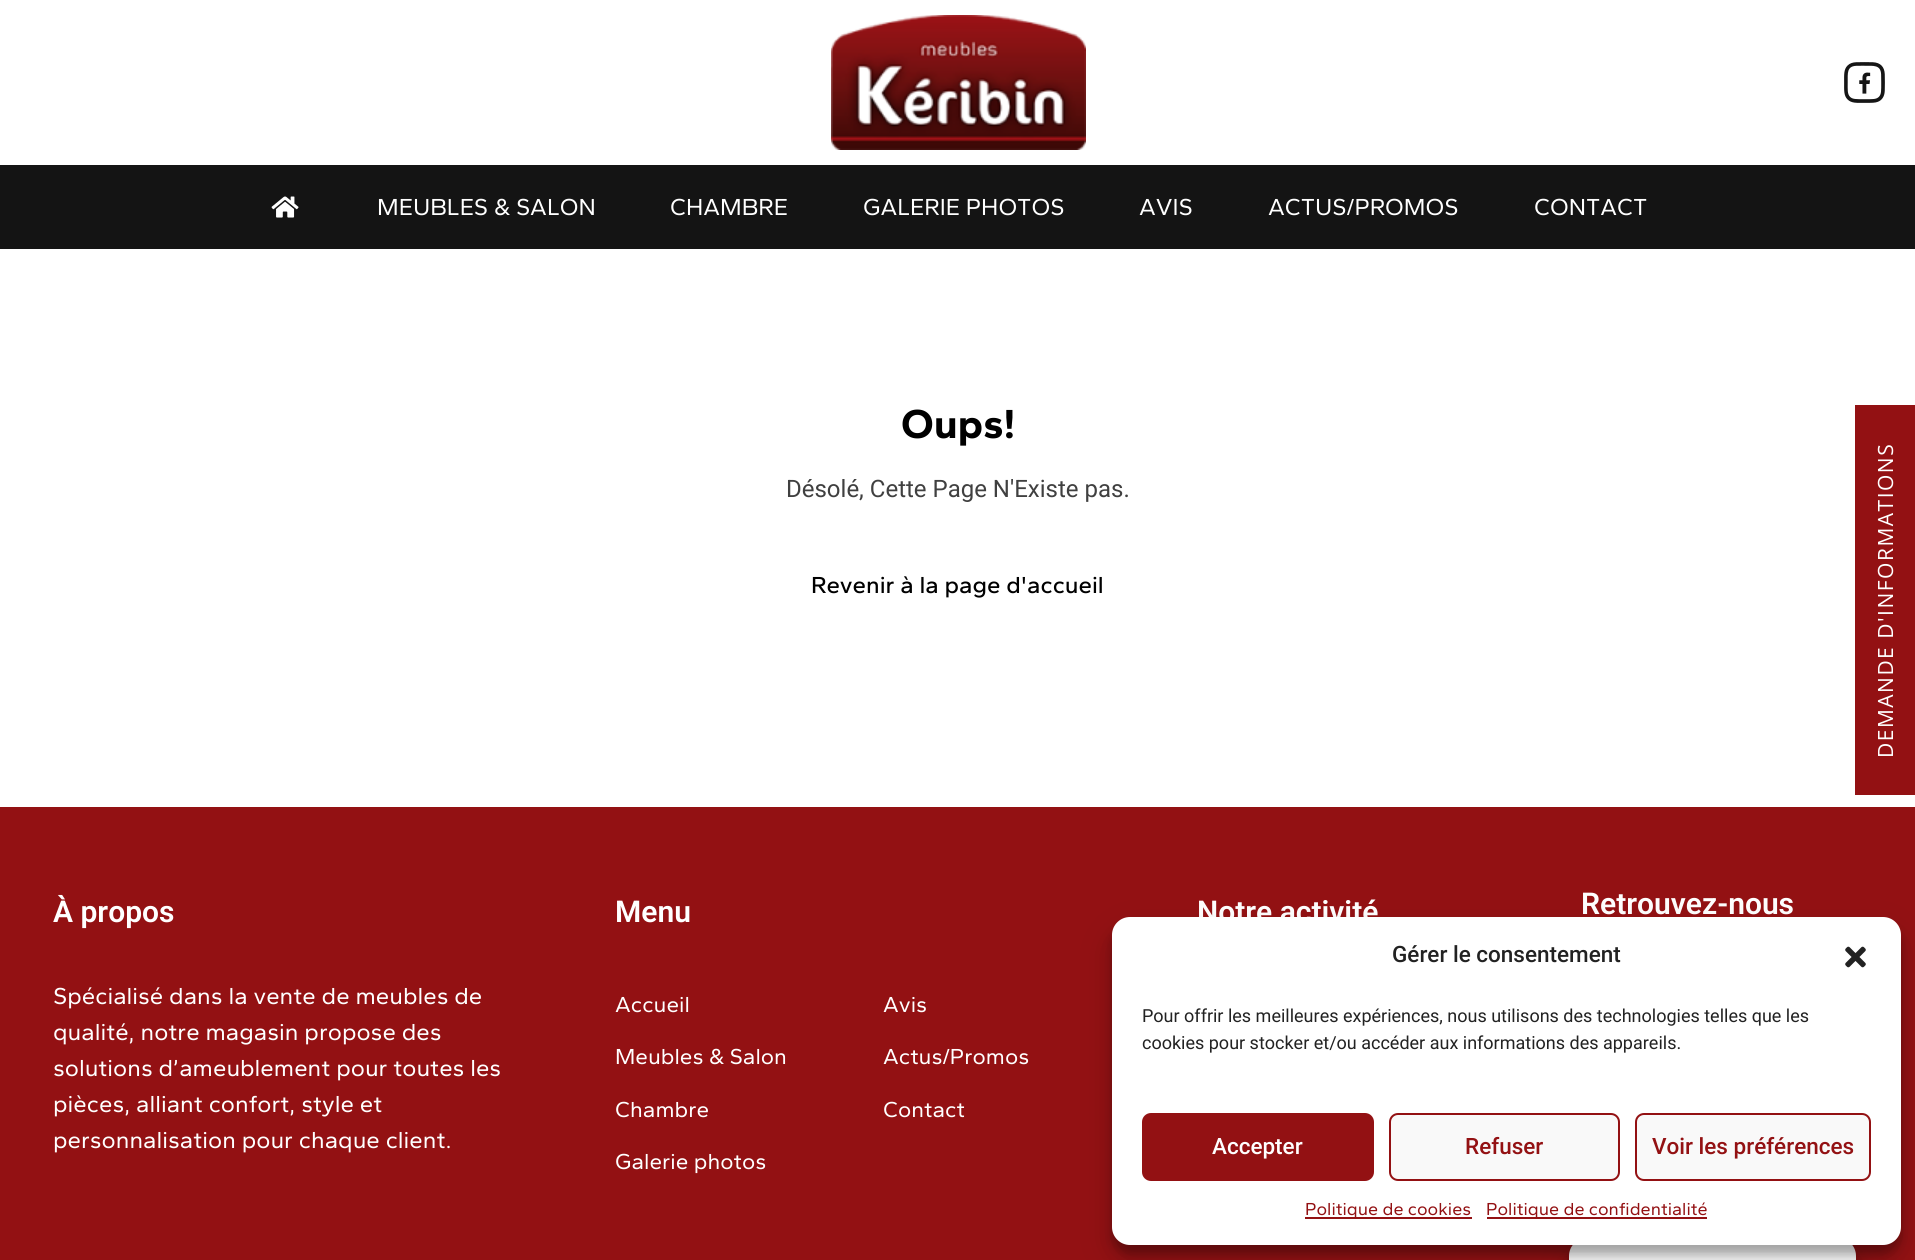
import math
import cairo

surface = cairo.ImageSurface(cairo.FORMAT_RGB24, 1915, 1260)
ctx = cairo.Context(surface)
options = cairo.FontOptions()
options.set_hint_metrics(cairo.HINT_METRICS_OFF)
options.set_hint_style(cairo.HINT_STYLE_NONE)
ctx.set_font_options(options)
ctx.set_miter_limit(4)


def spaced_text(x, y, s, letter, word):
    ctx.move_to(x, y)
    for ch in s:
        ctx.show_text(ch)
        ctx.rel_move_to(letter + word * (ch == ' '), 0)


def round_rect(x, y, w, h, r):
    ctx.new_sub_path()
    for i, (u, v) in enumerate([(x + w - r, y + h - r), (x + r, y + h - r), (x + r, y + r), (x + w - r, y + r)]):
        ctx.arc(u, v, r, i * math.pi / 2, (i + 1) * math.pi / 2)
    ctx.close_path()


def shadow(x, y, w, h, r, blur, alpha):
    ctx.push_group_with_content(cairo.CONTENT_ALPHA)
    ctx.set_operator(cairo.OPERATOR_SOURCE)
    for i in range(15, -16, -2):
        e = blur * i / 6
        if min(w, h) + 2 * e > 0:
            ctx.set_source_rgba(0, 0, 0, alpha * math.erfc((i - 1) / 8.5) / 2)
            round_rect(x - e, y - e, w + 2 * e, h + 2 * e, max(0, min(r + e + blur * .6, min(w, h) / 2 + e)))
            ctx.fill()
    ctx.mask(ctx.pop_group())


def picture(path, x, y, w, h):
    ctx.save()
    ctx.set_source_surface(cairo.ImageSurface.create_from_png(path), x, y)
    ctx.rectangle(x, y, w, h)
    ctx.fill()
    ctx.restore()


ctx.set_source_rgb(1, 1, 1)
ctx.paint()
picture("img1.png", 831, 15, 255, 135)
picture("img2.png", 1844, 62, 41, 41)
ctx.set_source_rgb(0.082, 0.082, 0.082)
ctx.rectangle(0, 165, 1915, 84)
ctx.fill()
picture("img3.png", 271, 196, 28, 22)
ctx.select_font_face("Gantari")
ctx.set_font_size(24)
ctx.set_source_rgb(1, 1, 1)
ctx.move_to(377, 215)
ctx.show_text("MEUBLES & SALON")
ctx.move_to(670, 215)
ctx.show_text("CHAMBRE")
ctx.move_to(863, 215)
ctx.show_text("GALERIE PHOTOS")
ctx.move_to(1139, 215)
ctx.show_text("AVIS")
ctx.move_to(1268, 215)
ctx.show_text("ACTUS/PROMOS")
ctx.move_to(1534, 215)
ctx.show_text("CONTACT")
ctx.select_font_face("Gantari", cairo.FONT_SLANT_NORMAL, cairo.FONT_WEIGHT_BOLD)
ctx.set_font_size(42)
ctx.set_source_rgb(0, 0, 0)
ctx.move_to(901, 438)
ctx.show_text("Oups!")
ctx.select_font_face("Roboto")
ctx.set_font_size(24)
ctx.set_source_rgb(0.251, 0.251, 0.251)
ctx.move_to(786, 497)
ctx.show_text("Désolé, Cette Page N'Existe pas.")
ctx.select_font_face("Gantari Medium")
ctx.set_source_rgb(0, 0, 0)
ctx.move_to(811, 593)
ctx.show_text("Revenir à la page d'accueil")
ctx.set_source_rgb(0.576, 0.067, 0.078)
ctx.rectangle(1855, 405, 60, 390)
ctx.fill()
ctx.select_font_face("Open Sans")
ctx.set_font_size(21)
ctx.set_source_rgb(1, 1, 1)
ctx.save()
ctx.translate(1893, 758)
ctx.rotate(-90 * math.pi / 180)
spaced_text(0, 0, "DEMANDE D'INFORMATIONS", 1.5, 0)
ctx.restore()
ctx.set_source_rgb(0.576, 0.067, 0.078)
ctx.rectangle(0, 807, 1915, 453)
ctx.fill()
ctx.select_font_face("Roboto SemiBold")
ctx.set_font_size(30)
ctx.set_source_rgb(1, 1, 1)
ctx.move_to(53, 922)
ctx.show_text("À propos")
ctx.select_font_face("Gantari")
ctx.set_font_size(24)
ctx.move_to(53, 1004)
ctx.show_text("Spécialisé dans la vente de meubles de")
ctx.move_to(53, 1040)
ctx.show_text("qualité, notre magasin propose des")
ctx.move_to(53, 1076)
ctx.show_text("solutions d’ameublement pour toutes les")
ctx.move_to(53, 1112)
ctx.show_text("pièces, alliant confort, style et")
ctx.move_to(53, 1148)
ctx.show_text("personnalisation pour chaque client.")
ctx.select_font_face("Roboto SemiBold")
ctx.set_font_size(30)
ctx.move_to(615, 922)
ctx.show_text("Menu")
ctx.select_font_face("Gantari")
ctx.set_font_size(22.5)
ctx.move_to(615, 1012)
ctx.show_text("Accueil")
ctx.move_to(883, 1012)
ctx.show_text("Avis")
ctx.move_to(615, 1064)
ctx.show_text("Meubles & Salon")
ctx.move_to(883, 1064)
ctx.show_text("Actus/Promos")
ctx.move_to(615, 1117)
ctx.show_text("Chambre")
ctx.move_to(883, 1117)
ctx.show_text("Contact")
ctx.move_to(615, 1169)
ctx.show_text("Galerie photos")
ctx.select_font_face("Roboto SemiBold")
ctx.set_font_size(30)
ctx.move_to(1197, 922)
ctx.show_text("Notre activité")
ctx.move_to(1581, 914)
ctx.show_text("Retrouvez-nous")
ctx.set_source_rgb(0, 0, 0)
shadow(1569, 1247, 287, 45, 18, 4.5, 0.23)
shadow(1569, 1253, 287, 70, 18, 15, 0.19)
ctx.set_source_rgb(1, 1, 1)
ctx.new_path()
ctx.move_to(1587, 1238)
ctx.line_to(1838, 1238)
ctx.curve_to(1848, 1238, 1856, 1246, 1856, 1256)
ctx.line_to(1856, 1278)
ctx.line_to(1569, 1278)
ctx.line_to(1569, 1256)
ctx.curve_to(1569, 1246, 1577, 1238, 1587, 1238)
ctx.close_path()
ctx.fill()
ctx.set_source_rgb(0, 0, 0)
shadow(1112, 926, 789, 328, 18, 4.5, 0.23)
shadow(1112, 932, 789, 328, 18, 15, 0.19)
ctx.set_source_rgb(1, 1, 1)
round_rect(1112, 917, 789, 328, 18)
ctx.fill()
ctx.select_font_face("Roboto Medium")
ctx.set_font_size(22.5)
ctx.set_source_rgb(0.133, 0.133, 0.133)
ctx.move_to(1392, 962)
ctx.show_text("Gérer le consentement")
picture("img4.png", 1845, 946, 21, 22)
ctx.select_font_face("Roboto")
ctx.set_font_size(18)
ctx.move_to(1142, 1022)
ctx.show_text("Pour offrir les meilleures expériences, nous utilisons des technologies telles que les")
ctx.move_to(1142, 1049)
ctx.show_text("cookies pour stocker et/ou accéder aux informations des appareils.")
ctx.set_source_rgb(0.576, 0.067, 0.078)
round_rect(1143, 1114, 230, 66, 8)
ctx.fill_preserve()
ctx.stroke()
ctx.select_font_face("Roboto Medium")
ctx.set_font_size(22.5)
ctx.set_source_rgb(1, 1, 1)
ctx.move_to(1212, 1154)
ctx.show_text("Accepter")
ctx.set_source_rgb(0.976, 0.976, 0.976)
round_rect(1390, 1114, 229, 66, 8)
ctx.fill_preserve()
ctx.set_source_rgb(0.576, 0.067, 0.078)
ctx.stroke()
ctx.move_to(1465, 1154)
ctx.show_text("Refuser")
ctx.set_source_rgb(0.976, 0.976, 0.976)
round_rect(1636, 1114, 234, 66, 8)
ctx.fill_preserve()
ctx.set_source_rgb(0.576, 0.067, 0.078)
ctx.stroke()
ctx.move_to(1652, 1154)
ctx.show_text("Voir les préférences")
ctx.rectangle(1305, 1217, 167, 2)
ctx.fill()
ctx.select_font_face("Gantari")
ctx.set_font_size(18)
ctx.move_to(1305, 1215)
ctx.show_text("Politique de cookies")
ctx.rectangle(1487, 1217, 220, 2)
ctx.fill()
ctx.move_to(1486, 1215)
ctx.show_text("Politique de confidentialité")
surface.write_to_png("page.png")
